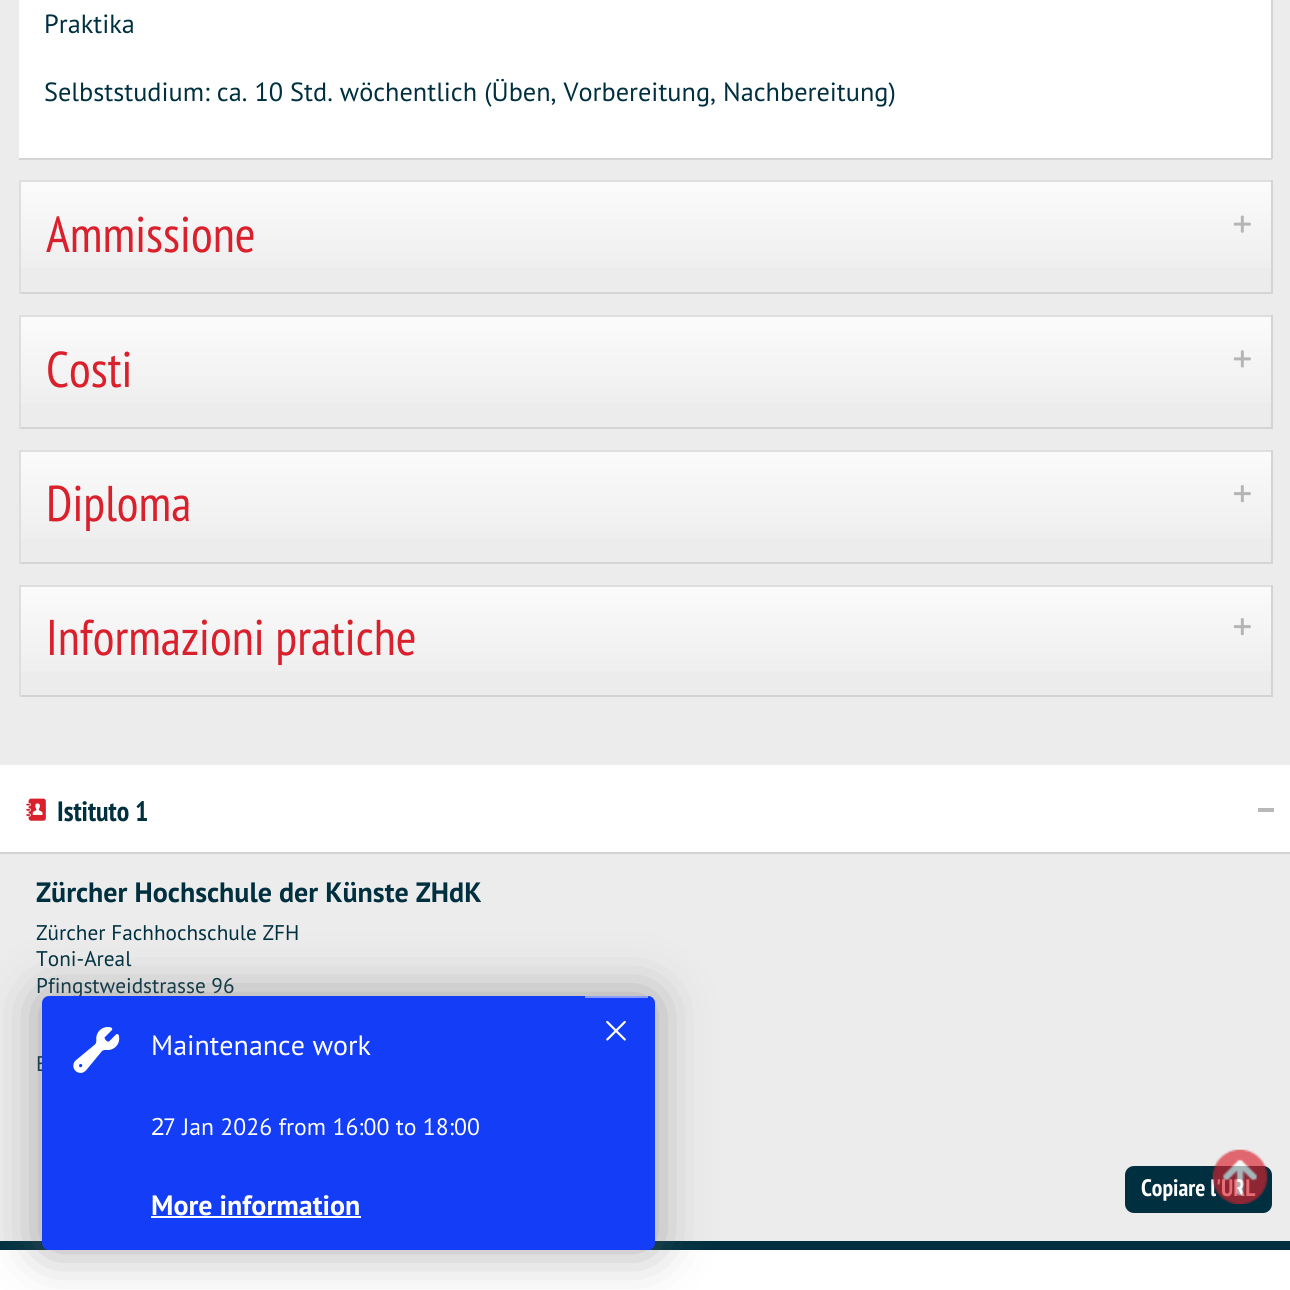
import math
import cairo

surface = cairo.ImageSurface(cairo.FORMAT_RGB24, 1290, 1290)
ctx = cairo.Context(surface)
options = cairo.FontOptions()
options.set_hint_metrics(cairo.HINT_METRICS_OFF)
options.set_hint_style(cairo.HINT_STYLE_NONE)
ctx.set_font_options(options)
ctx.set_miter_limit(4)


def round_rect(x, y, w, h, r):
    ctx.new_sub_path()
    for i, (u, v) in enumerate([(x + w - r, y + h - r), (x + r, y + h - r), (x + r, y + r), (x + w - r, y + r)]):
        ctx.arc(u, v, r, i * math.pi / 2, (i + 1) * math.pi / 2)
    ctx.close_path()


def shadow(x, y, w, h, r, blur, alpha):
    ctx.push_group_with_content(cairo.CONTENT_ALPHA)
    ctx.set_operator(cairo.OPERATOR_SOURCE)
    for i in range(15, -16, -2):
        e = blur * i / 6
        if min(w, h) + 2 * e > 0:
            ctx.set_source_rgba(0, 0, 0, alpha * math.erfc((i - 1) / 8.5) / 2)
            round_rect(x - e, y - e, w + 2 * e, h + 2 * e, max(0, min(r + e + blur * .6, min(w, h) / 2 + e)))
            ctx.fill()
    ctx.mask(ctx.pop_group())


def picture(path, x, y, w, h):
    ctx.save()
    ctx.set_source_surface(cairo.ImageSurface.create_from_png(path), x, y)
    ctx.rectangle(x, y, w, h)
    ctx.fill()
    ctx.restore()


ctx.set_source_rgb(0.925, 0.925, 0.925)
ctx.paint()
ctx.set_source_rgb(1, 1, 1)
ctx.rectangle(19, 0, 1252, 158)
ctx.fill()
ctx.set_source_rgb(0.831, 0.831, 0.831)
ctx.rectangle(1271, 0, 2, 159)
ctx.fill()
ctx.rectangle(19, 158, 1253, 2)
ctx.fill()
ctx.select_font_face("PT Sans")
ctx.set_font_size(26.3)
ctx.set_source_rgb(0, 0.188, 0.251)
ctx.move_to(44, 33)
ctx.show_text("Praktika")
ctx.move_to(44, 101)
ctx.show_text("Selbststudium: ca. 10 Std. wöchentlich (Üben, Vorbereitung, Nachbereitung)")
gradient = cairo.LinearGradient(646, 182, 646, 292)
gradient.add_color_stop_rgba(0, 0.984, 0.984, 0.984, 1)
gradient.add_color_stop_rgba(1, 0.922, 0.922, 0.922, 1)
ctx.set_source(gradient)
ctx.rectangle(21, 182, 1250, 86)
ctx.fill()
ctx.set_source_rgb(0.871, 0.871, 0.871)
ctx.rectangle(19, 180, 1253, 2)
ctx.fill()
ctx.set_source_rgb(0.831, 0.831, 0.831)
ctx.rectangle(1271, 180, 2, 114)
ctx.fill()
ctx.rectangle(19, 292, 1253, 2)
ctx.fill()
ctx.set_source_rgb(0.871, 0.871, 0.871)
ctx.rectangle(19, 180, 2, 114)
ctx.fill()
ctx.select_font_face("PT Sans Narrow")
ctx.set_font_size(50.25)
ctx.set_source_rgb(0.855, 0.125, 0.173)
ctx.move_to(46, 252)
ctx.show_text("Ammissione")
picture("img1.png", 1233, 215, 18, 18)
gradient = cairo.LinearGradient(646, 317, 646, 427)
gradient.add_color_stop_rgba(0, 0.984, 0.984, 0.984, 1)
gradient.add_color_stop_rgba(1, 0.922, 0.922, 0.922, 1)
ctx.set_source(gradient)
ctx.rectangle(21, 317, 1250, 86)
ctx.fill()
ctx.set_source_rgb(0.871, 0.871, 0.871)
ctx.rectangle(19, 315, 1253, 2)
ctx.fill()
ctx.set_source_rgb(0.831, 0.831, 0.831)
ctx.rectangle(1271, 315, 2, 114)
ctx.fill()
ctx.rectangle(19, 427, 1253, 2)
ctx.fill()
ctx.set_source_rgb(0.871, 0.871, 0.871)
ctx.rectangle(19, 315, 2, 114)
ctx.fill()
ctx.set_source_rgb(0.855, 0.125, 0.173)
ctx.move_to(46, 387)
ctx.show_text("Costi")
picture("img2.png", 1233, 350, 18, 18)
gradient = cairo.LinearGradient(646, 451, 646, 562)
gradient.add_color_stop_rgba(0, 0.984, 0.984, 0.984, 1)
gradient.add_color_stop_rgba(1, 0.922, 0.922, 0.922, 1)
ctx.set_source(gradient)
ctx.rectangle(21, 452, 1250, 86)
ctx.fill()
ctx.set_source_rgb(0.871, 0.871, 0.871)
ctx.rectangle(19, 450, 1253, 2)
ctx.fill()
ctx.set_source_rgb(0.831, 0.831, 0.831)
ctx.rectangle(1271, 450, 2, 114)
ctx.fill()
ctx.rectangle(19, 562, 1253, 2)
ctx.fill()
ctx.set_source_rgb(0.871, 0.871, 0.871)
ctx.rectangle(19, 450, 2, 114)
ctx.fill()
ctx.set_source_rgb(0.855, 0.125, 0.173)
ctx.move_to(46, 521)
ctx.show_text("Diploma")
picture("img3.png", 1233, 485, 18, 18)
gradient = cairo.LinearGradient(646, 586, 646, 695)
gradient.add_color_stop_rgba(0, 0.984, 0.984, 0.984, 1)
gradient.add_color_stop_rgba(1, 0.922, 0.922, 0.922, 1)
ctx.set_source(gradient)
ctx.rectangle(21, 587, 1250, 84)
ctx.fill()
ctx.set_source_rgb(0.871, 0.871, 0.871)
ctx.rectangle(19, 585, 1253, 2)
ctx.fill()
ctx.set_source_rgb(0.831, 0.831, 0.831)
ctx.rectangle(1271, 585, 2, 112)
ctx.fill()
ctx.rectangle(19, 695, 1253, 2)
ctx.fill()
ctx.set_source_rgb(0.871, 0.871, 0.871)
ctx.rectangle(19, 585, 2, 112)
ctx.fill()
ctx.set_source_rgb(0.855, 0.125, 0.173)
ctx.move_to(46, 655)
ctx.show_text("Informazioni pratiche")
picture("img4.png", 1233, 618, 18, 18)
ctx.set_source_rgb(1, 1, 1)
ctx.rectangle(0, 765, 1290, 87)
ctx.fill()
ctx.set_source_rgb(0.831, 0.831, 0.831)
ctx.rectangle(0, 852, 1290, 2)
ctx.fill()
picture("img5.png", 26, 798, 20, 23)
ctx.select_font_face("PT Sans Narrow", cairo.FONT_SLANT_NORMAL, cairo.FONT_WEIGHT_BOLD)
ctx.set_font_size(28)
ctx.set_source_rgb(0, 0.188, 0.251)
ctx.move_to(57, 821)
ctx.show_text("Istituto 1")
ctx.set_source_rgb(0.722, 0.722, 0.722)
ctx.rectangle(1258, 808, 16, 4)
ctx.fill()
ctx.select_font_face("PT Sans", cairo.FONT_SLANT_NORMAL, cairo.FONT_WEIGHT_BOLD)
ctx.set_source_rgb(0, 0.188, 0.251)
ctx.move_to(36, 902)
ctx.show_text("Zürcher Hochschule der Künste ZHdK")
ctx.select_font_face("PT Sans")
ctx.set_font_size(21.25)
ctx.move_to(36, 940)
ctx.show_text("Zürcher Fachhochschule ZFH")
ctx.move_to(36, 966)
ctx.show_text("Toni-Areal")
ctx.move_to(36, 993)
ctx.show_text("Pfingstweidstrasse 96")
ctx.move_to(36, 1071)
ctx.show_text("E")
round_rect(1126, 1167, 145, 45, 8)
ctx.fill_preserve()
ctx.stroke()
ctx.select_font_face("PT Sans Narrow", cairo.FONT_SLANT_NORMAL, cairo.FONT_WEIGHT_BOLD)
ctx.set_font_size(23.75)
ctx.set_source_rgb(1, 1, 1)
ctx.move_to(1141, 1196)
ctx.show_text("Copiare l'URL")
ctx.set_source_rgb(0, 0.188, 0.251)
ctx.rectangle(0, 1241, 1290, 9)
ctx.fill()
ctx.set_source_rgb(1, 1, 1)
ctx.rectangle(0, 1250, 1290, 40)
ctx.fill()
ctx.set_source_rgb(0.412, 0.412, 0.412)
shadow(42, 996, 613, 254, 7, 26, 0.58)
ctx.set_source_rgb(0.075, 0.239, 0.965)
round_rect(42, 996, 613, 254, 7)
ctx.fill()
ctx.set_source_rgb(0.537, 0.62, 0.984)
ctx.rectangle(585, 996, 63, 2)
ctx.fill()
picture("img6.png", 606, 1020, 20, 21)
picture("img7.png", 73, 1027, 47, 46)
ctx.select_font_face("PT Sans")
ctx.set_font_size(28)
ctx.set_source_rgb(1, 1, 1)
ctx.move_to(151, 1055)
ctx.show_text("Maintenance work")
ctx.select_font_face("Noto Sans")
ctx.set_font_size(23.75)
ctx.move_to(151, 1135)
ctx.show_text("2")
ctx.select_font_face("PT Sans")
ctx.move_to(163, 1135)
ctx.show_text("7 Jan 2026 from 16:00 to 18:00")
ctx.select_font_face("PT Sans", cairo.FONT_SLANT_NORMAL, cairo.FONT_WEIGHT_BOLD)
ctx.set_font_size(28)
ctx.move_to(151, 1215)
ctx.show_text("More information")
ctx.rectangle(151, 1216, 210, 2)
ctx.fill()
picture("img8.png", 1212, 1149, 56, 55)
surface.write_to_png("page.png")
